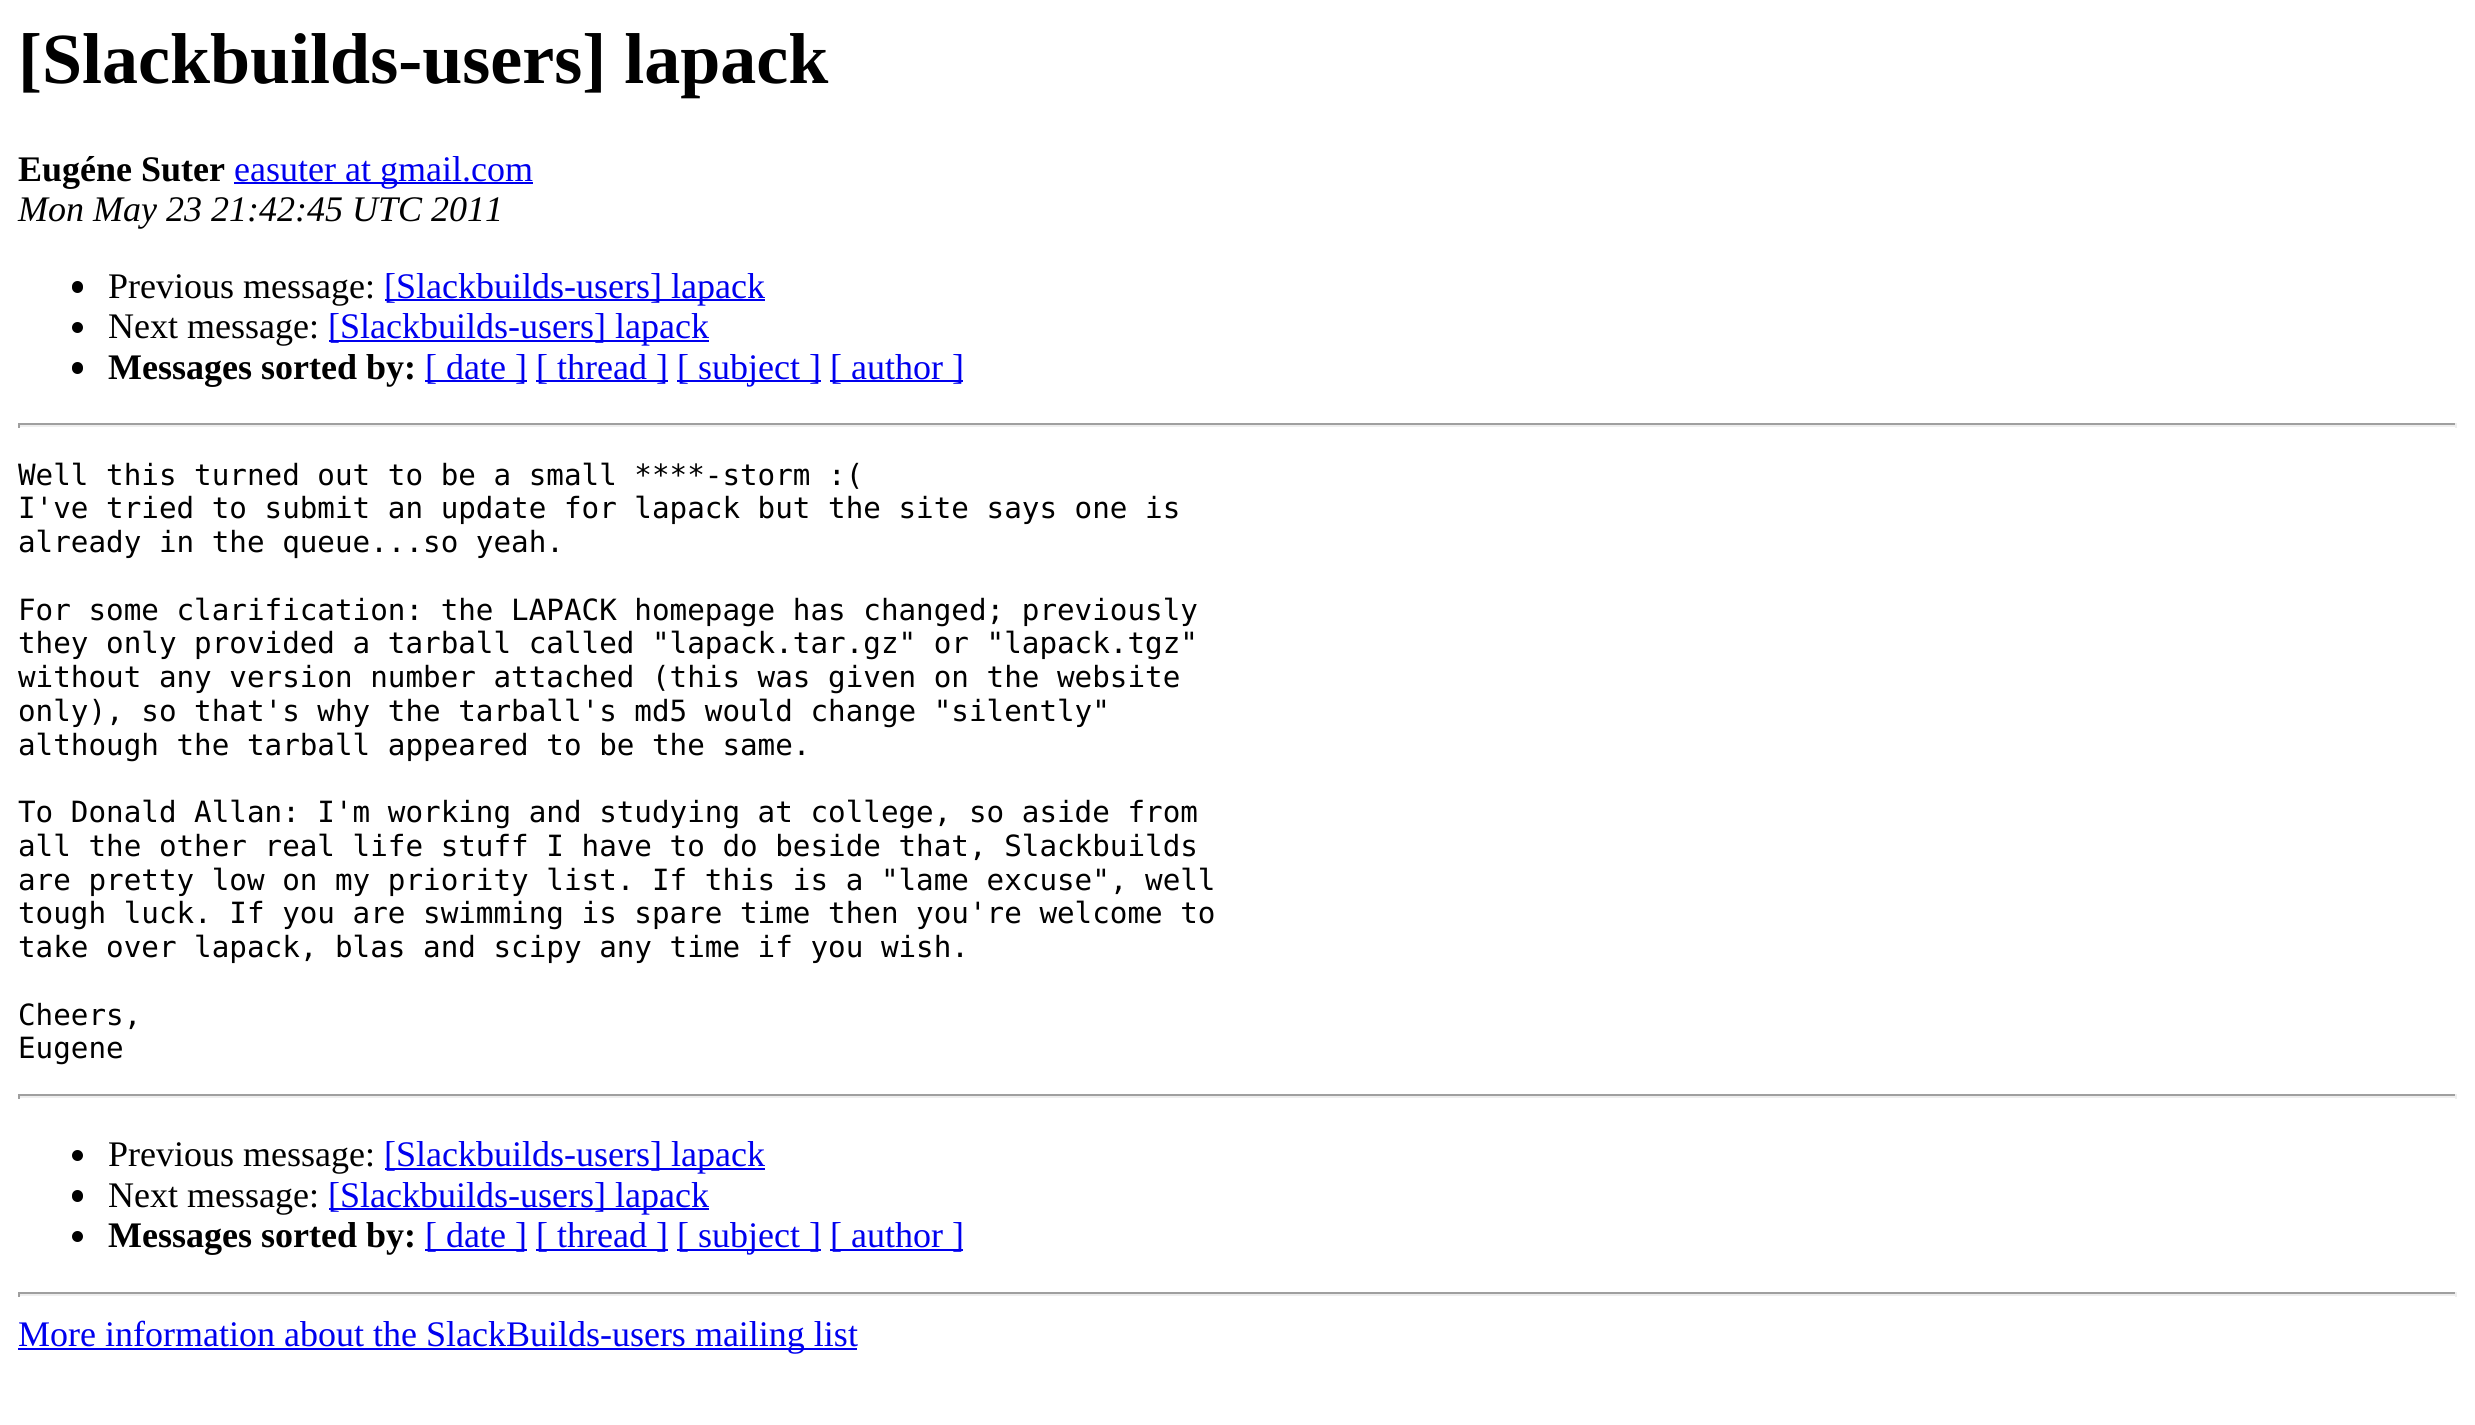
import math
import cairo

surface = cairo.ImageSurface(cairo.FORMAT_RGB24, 2475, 1425)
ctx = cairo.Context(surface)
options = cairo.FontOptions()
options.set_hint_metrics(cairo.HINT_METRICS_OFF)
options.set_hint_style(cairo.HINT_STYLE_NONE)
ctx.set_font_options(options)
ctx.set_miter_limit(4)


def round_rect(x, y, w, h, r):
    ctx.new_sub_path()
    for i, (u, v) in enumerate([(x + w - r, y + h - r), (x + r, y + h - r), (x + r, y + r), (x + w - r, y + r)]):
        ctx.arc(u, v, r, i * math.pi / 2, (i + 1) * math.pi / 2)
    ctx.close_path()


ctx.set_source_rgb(1, 1, 1)
ctx.paint()
ctx.select_font_face("Liberation Serif", cairo.FONT_SLANT_NORMAL, cairo.FONT_WEIGHT_BOLD)
ctx.set_font_size(72)
ctx.set_source_rgb(0, 0, 0)
ctx.move_to(18, 83)
ctx.show_text("[Slackbuilds-users] lapack")
ctx.set_font_size(36)
ctx.move_to(18, 181)
ctx.show_text("Eugéne Suter")
ctx.set_source_rgb(0, 0, 0.933)
ctx.rectangle(234, 182, 299, 2)
ctx.fill()
ctx.select_font_face("Liberation Serif")
ctx.move_to(234, 181)
ctx.show_text("easuter at gmail.com")
ctx.select_font_face("Liberation Serif", cairo.FONT_SLANT_ITALIC)
ctx.set_source_rgb(0, 0, 0)
ctx.move_to(18, 221)
ctx.show_text("Mon May 23 21:42:45 UTC 2011")
round_rect(72, 281, 11, 12, 5.5)
ctx.fill()
ctx.select_font_face("Liberation Serif")
ctx.move_to(108, 298)
ctx.show_text("Previous message:")
ctx.set_source_rgb(0, 0, 0.933)
ctx.rectangle(385, 299, 380, 2)
ctx.fill()
ctx.move_to(384, 298)
ctx.show_text("[Slackbuilds-users] lapack")
ctx.set_source_rgb(0, 0, 0)
ctx.new_path()
ctx.arc(77.5, 327.5, 5.5, 0, 2 * math.pi)
ctx.fill()
ctx.move_to(108, 338)
ctx.show_text("Next message:")
ctx.set_source_rgb(0, 0, 0.933)
ctx.rectangle(329, 340, 380, 2)
ctx.fill()
ctx.move_to(328, 338)
ctx.show_text("[Slackbuilds-users] lapack")
ctx.set_source_rgb(0, 0, 0)
round_rect(72, 362, 11, 12, 5.5)
ctx.fill()
ctx.select_font_face("Liberation Serif", cairo.FONT_SLANT_NORMAL, cairo.FONT_WEIGHT_BOLD)
ctx.move_to(108, 379)
ctx.show_text("Messages sorted by:")
ctx.set_source_rgb(0, 0, 0.933)
ctx.rectangle(425, 380, 102, 2)
ctx.fill()
ctx.select_font_face("Liberation Serif")
ctx.move_to(425, 379)
ctx.show_text("[ date ]")
ctx.rectangle(536, 380, 132, 2)
ctx.fill()
ctx.move_to(536, 379)
ctx.show_text("[ thread ]")
ctx.rectangle(677, 380, 144, 2)
ctx.fill()
ctx.move_to(677, 379)
ctx.show_text("[ subject ]")
ctx.rectangle(830, 380, 133, 2)
ctx.fill()
ctx.move_to(830, 379)
ctx.show_text("[ author ]")
ctx.set_source_rgb(0.624, 0.624, 0.624)
ctx.rectangle(18, 423, 2439, 2)
ctx.fill()
ctx.set_source_rgb(0.933, 0.933, 0.933)
ctx.rectangle(2455, 423, 2, 5)
ctx.fill()
ctx.rectangle(18, 425, 2439, 2)
ctx.fill()
ctx.set_source_rgb(0.624, 0.624, 0.624)
ctx.rectangle(18, 423, 2, 5)
ctx.fill()
ctx.select_font_face("DejaVu Sans Mono")
ctx.set_font_size(29.25)
ctx.set_source_rgb(0, 0, 0)
ctx.move_to(18, 485)
ctx.show_text("Well this turned out to be a small ****-storm :(")
ctx.move_to(18, 518)
ctx.show_text("I've tried to submit an update for lapack but the site says one is")
ctx.move_to(18, 552)
ctx.show_text("already in the queue...so yeah.")
ctx.move_to(18, 620)
ctx.show_text("For some clarification: the LAPACK homepage has changed; previously")
ctx.move_to(18, 653)
ctx.show_text("they only provided a tarball called \"lapack.tar.gz\" or \"lapack.tgz\"")
ctx.move_to(18, 687)
ctx.show_text("without any version number attached (this was given on the website")
ctx.move_to(18, 721)
ctx.show_text("only), so that's why the tarball's md5 would change \"silently\"")
ctx.move_to(18, 755)
ctx.show_text("although the tarball appeared to be the same.")
ctx.move_to(18, 822)
ctx.show_text("To Donald Allan: I'm working and studying at college, so aside from")
ctx.move_to(18, 856)
ctx.show_text("all the other real life stuff I have to do beside that, Slackbuilds")
ctx.move_to(18, 890)
ctx.show_text("are pretty low on my priority list. If this is a \"lame excuse\", well")
ctx.move_to(18, 923)
ctx.show_text("tough luck. If you are swimming is spare time then you're welcome to")
ctx.move_to(18, 957)
ctx.show_text("take over lapack, blas and scipy any time if you wish.")
ctx.move_to(18, 1025)
ctx.show_text("Cheers,")
ctx.move_to(18, 1058)
ctx.show_text("Eugene")
ctx.set_source_rgb(0.624, 0.624, 0.624)
ctx.rectangle(18, 1094, 2439, 2)
ctx.fill()
ctx.set_source_rgb(0.933, 0.933, 0.933)
ctx.rectangle(2455, 1094, 2, 5)
ctx.fill()
ctx.rectangle(18, 1096, 2439, 2)
ctx.fill()
ctx.set_source_rgb(0.624, 0.624, 0.624)
ctx.rectangle(18, 1094, 2, 5)
ctx.fill()
ctx.set_source_rgb(0, 0, 0)
ctx.arc(77.5, 1155.5, 5.5, 0, 2 * math.pi)
ctx.fill()
ctx.select_font_face("Liberation Serif")
ctx.set_font_size(36)
ctx.move_to(108, 1166)
ctx.show_text("Previous message:")
ctx.set_source_rgb(0, 0, 0.933)
ctx.rectangle(385, 1168, 380, 2)
ctx.fill()
ctx.move_to(384, 1166)
ctx.show_text("[Slackbuilds-users] lapack")
ctx.set_source_rgb(0, 0, 0)
round_rect(72, 1190, 11, 12, 5.5)
ctx.fill()
ctx.move_to(108, 1207)
ctx.show_text("Next message:")
ctx.set_source_rgb(0, 0, 0.933)
ctx.rectangle(329, 1208, 380, 2)
ctx.fill()
ctx.move_to(328, 1207)
ctx.show_text("[Slackbuilds-users] lapack")
ctx.set_source_rgb(0, 0, 0)
ctx.new_path()
ctx.arc(77.5, 1236.5, 5.5, 0, 2 * math.pi)
ctx.fill()
ctx.select_font_face("Liberation Serif", cairo.FONT_SLANT_NORMAL, cairo.FONT_WEIGHT_BOLD)
ctx.move_to(108, 1247)
ctx.show_text("Messages sorted by:")
ctx.set_source_rgb(0, 0, 0.933)
ctx.rectangle(425, 1249, 102, 2)
ctx.fill()
ctx.select_font_face("Liberation Serif")
ctx.move_to(425, 1247)
ctx.show_text("[ date ]")
ctx.rectangle(536, 1249, 132, 2)
ctx.fill()
ctx.move_to(536, 1247)
ctx.show_text("[ thread ]")
ctx.rectangle(677, 1249, 144, 2)
ctx.fill()
ctx.move_to(677, 1247)
ctx.show_text("[ subject ]")
ctx.rectangle(830, 1249, 133, 2)
ctx.fill()
ctx.move_to(830, 1247)
ctx.show_text("[ author ]")
ctx.set_source_rgb(0.624, 0.624, 0.624)
ctx.rectangle(18, 1292, 2439, 2)
ctx.fill()
ctx.set_source_rgb(0.933, 0.933, 0.933)
ctx.rectangle(2455, 1292, 2, 5)
ctx.fill()
ctx.rectangle(18, 1294, 2439, 2)
ctx.fill()
ctx.set_source_rgb(0.624, 0.624, 0.624)
ctx.rectangle(18, 1292, 2, 5)
ctx.fill()
ctx.set_source_rgb(0, 0, 0.933)
ctx.rectangle(18, 1348, 839, 2)
ctx.fill()
ctx.move_to(18, 1346)
ctx.show_text("More information about the SlackBuilds-users mailing list")
surface.write_to_png("page.png")
